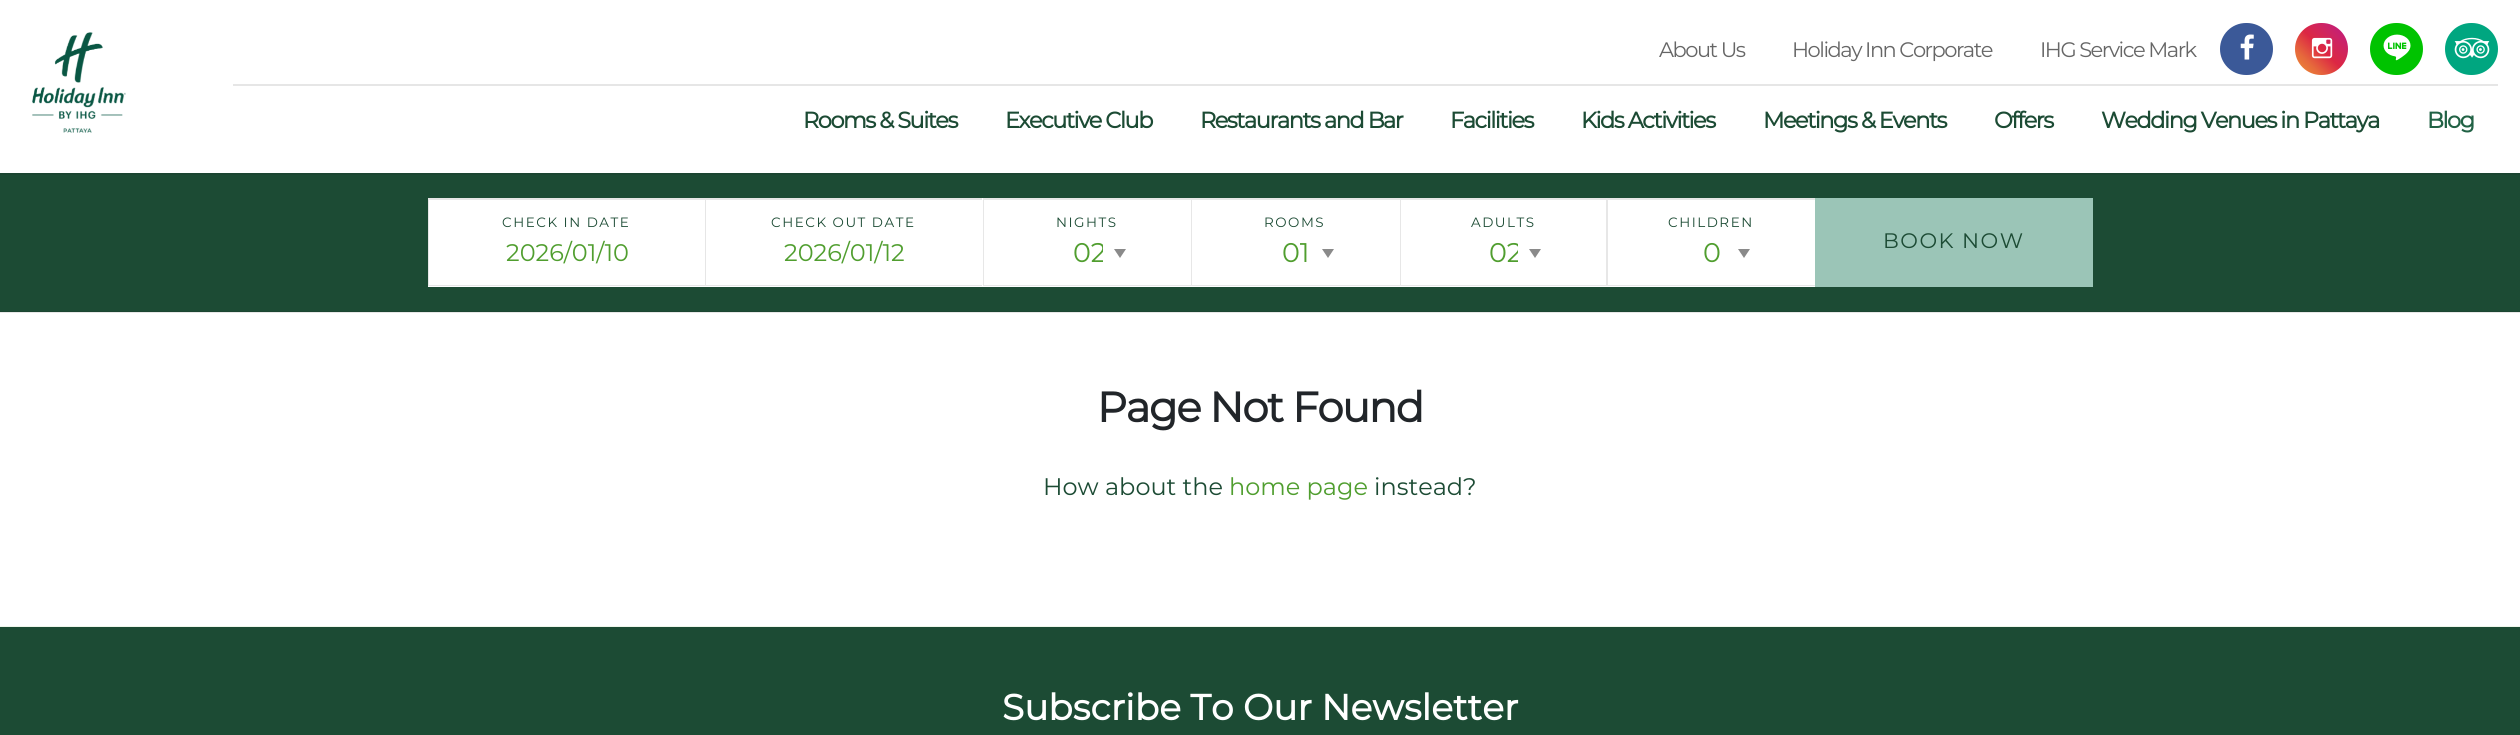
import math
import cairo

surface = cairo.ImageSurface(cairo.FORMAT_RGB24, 2520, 735)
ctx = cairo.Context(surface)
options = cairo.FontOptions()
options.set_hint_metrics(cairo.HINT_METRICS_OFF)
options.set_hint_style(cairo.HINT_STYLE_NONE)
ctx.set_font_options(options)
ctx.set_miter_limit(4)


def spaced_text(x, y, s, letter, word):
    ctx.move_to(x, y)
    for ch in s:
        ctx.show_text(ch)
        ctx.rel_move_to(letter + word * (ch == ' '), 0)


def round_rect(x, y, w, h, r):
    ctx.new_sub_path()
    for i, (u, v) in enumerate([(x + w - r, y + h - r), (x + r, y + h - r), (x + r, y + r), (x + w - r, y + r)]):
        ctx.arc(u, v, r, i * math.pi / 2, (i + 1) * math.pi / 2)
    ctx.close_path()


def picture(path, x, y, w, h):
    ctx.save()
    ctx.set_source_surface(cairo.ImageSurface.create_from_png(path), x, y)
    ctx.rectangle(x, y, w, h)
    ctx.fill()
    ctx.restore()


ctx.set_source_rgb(1, 1, 1)
ctx.paint()
ctx.set_source_rgb(0.906, 0.906, 0.906)
ctx.rectangle(0, 312, 2520, 1)
ctx.fill()
picture("img1.png", 32, 32, 94, 101)
ctx.select_font_face("Montserrat")
ctx.set_font_size(21)
ctx.set_source_rgb(0.4, 0.4, 0.4)
spaced_text(1659, 57, "About Us", -1.5, 0)
spaced_text(1792, 57, "Holiday Inn Corporate", -1.5, 0)
spaced_text(2040, 57, "IHG Service Mark", -1.5, 0)
ctx.set_source_rgb(0.231, 0.349, 0.596)
round_rect(2220, 23, 53, 52, 26)
ctx.fill()
picture("img2.png", 2240, 34, 14, 26)
gradient = cairo.LinearGradient(2295, 75, 2348, 22)
gradient.add_color_stop_rgba(0, 0.941, 0.58, 0.2, 1)
gradient.add_color_stop_rgba(0.25, 0.902, 0.408, 0.235, 1)
gradient.add_color_stop_rgba(0.5, 0.863, 0.153, 0.263, 1)
gradient.add_color_stop_rgba(0.75, 0.8, 0.137, 0.4, 1)
gradient.add_color_stop_rgba(1, 0.737, 0.094, 0.533, 1)
ctx.set_source(gradient)
round_rect(2295, 23, 53, 52, 26)
ctx.fill()
picture("img3.png", 2311, 37, 22, 22)
ctx.set_source_rgb(0, 0.765, 0)
round_rect(2370, 23, 53, 52, 26)
ctx.fill()
picture("img4.png", 2383, 34, 28, 27)
ctx.set_source_rgb(0, 0.651, 0.502)
round_rect(2445, 23, 53, 52, 26)
ctx.fill()
picture("img5.png", 2454, 37, 36, 22)
ctx.set_source_rgb(0.902, 0.902, 0.902)
ctx.rectangle(233, 84, 2265, 2)
ctx.fill()
ctx.select_font_face("Montserrat", cairo.FONT_SLANT_NORMAL, cairo.FONT_WEIGHT_BOLD)
ctx.set_font_size(22.5)
ctx.set_source_rgb(0.11, 0.294, 0.204)
spaced_text(803, 128, "Rooms & Suites", -1.5, 0)
spaced_text(1005, 128, "Executive Club", -1.5, 0)
spaced_text(1200, 128, "Restaurants and Bar", -1.5, 0)
spaced_text(1450, 128, "Facilities", -1.5, 0)
spaced_text(1581, 128, "Kids Activities", -1.5, 0)
spaced_text(1763, 128, "Meetings & Events", -1.5, 0)
spaced_text(1994, 128, "Offers", -1.5, 0)
spaced_text(2101, 128, "Wedding Venues in Pattaya", -1.5, 0)
ctx.set_source_rgb(0.129, 0.384, 0.271)
spaced_text(2427, 128, "Blog", -1.5, 0)
ctx.set_source_rgb(0.11, 0.294, 0.204)
ctx.rectangle(0, 175, 2520, 136)
ctx.fill()
ctx.set_source_rgb(0.106, 0.271, 0.192)
ctx.rectangle(0, 311, 2520, 1)
ctx.fill()
ctx.rectangle(0, 173, 2520, 2)
ctx.fill()
ctx.set_source_rgb(1, 1, 1)
ctx.rectangle(983, 199, 208, 88)
ctx.fill()
ctx.set_source_rgb(0.906, 0.906, 0.906)
ctx.new_path()
ctx.move_to(982, 198)
ctx.line_to(1191, 198)
ctx.line_to(1191, 200)
ctx.line_to(984, 200)
ctx.close_path()
ctx.fill()
ctx.new_path()
ctx.move_to(1191, 286)
ctx.line_to(982, 286)
ctx.line_to(984, 285)
ctx.line_to(1191, 285)
ctx.close_path()
ctx.fill()
ctx.set_source_rgba(0.067, 0.067, 0.067, 0.1)
ctx.new_path()
ctx.move_to(982, 286)
ctx.line_to(982, 198)
ctx.line_to(984, 200)
ctx.line_to(984, 285)
ctx.close_path()
ctx.fill()
ctx.set_source_rgb(1, 1, 1)
ctx.rectangle(428, 198, 555, 89)
ctx.fill()
ctx.select_font_face("Montserrat")
ctx.set_font_size(13.5)
ctx.set_source_rgb(0.11, 0.294, 0.204)
spaced_text(502, 227, "CHECK IN DATE", 1.5, 0)
ctx.set_source_rgb(0.902, 0.902, 0.902)
ctx.new_path()
ctx.move_to(428, 198)
ctx.line_to(705, 198)
ctx.line_to(705, 200)
ctx.line_to(429, 200)
ctx.close_path()
ctx.fill()
ctx.new_path()
ctx.move_to(705, 286)
ctx.line_to(428, 286)
ctx.line_to(429, 285)
ctx.line_to(705, 285)
ctx.close_path()
ctx.fill()
ctx.set_source_rgba(0, 0, 0, 0.1)
ctx.new_path()
ctx.move_to(428, 286)
ctx.line_to(428, 198)
ctx.line_to(429, 200)
ctx.line_to(429, 285)
ctx.close_path()
ctx.fill()
ctx.set_font_size(24)
ctx.set_source_rgb(0.314, 0.62, 0.184)
ctx.move_to(506, 261)
ctx.show_text("2026/01/10")
ctx.set_font_size(13.5)
ctx.set_source_rgb(0.11, 0.294, 0.204)
spaced_text(771, 227, "CHECK OUT DATE", 1.5, 0)
ctx.set_source_rgb(0.902, 0.902, 0.902)
ctx.new_path()
ctx.move_to(705, 198)
ctx.line_to(982, 198)
ctx.line_to(982, 200)
ctx.line_to(706, 200)
ctx.close_path()
ctx.fill()
ctx.new_path()
ctx.move_to(982, 286)
ctx.line_to(705, 286)
ctx.line_to(706, 285)
ctx.line_to(982, 285)
ctx.close_path()
ctx.fill()
ctx.set_source_rgba(0, 0, 0, 0.1)
ctx.new_path()
ctx.move_to(705, 286)
ctx.line_to(705, 198)
ctx.line_to(706, 200)
ctx.line_to(706, 285)
ctx.close_path()
ctx.fill()
ctx.set_font_size(24)
ctx.set_source_rgb(0.314, 0.62, 0.184)
ctx.move_to(784, 261)
ctx.show_text("2026/01/12")
ctx.set_font_size(13.5)
ctx.set_source_rgb(0.11, 0.294, 0.204)
spaced_text(1056, 227, "NIGHTS", 1.5, 0)
ctx.set_source_rgb(0.541, 0.541, 0.541)
ctx.new_path()
ctx.move_to(1114, 249)
ctx.line_to(1126, 249)
ctx.line_to(1120, 258)
ctx.close_path()
ctx.fill()
ctx.save()
ctx.rectangle(1073, 237, 30, 33)
ctx.clip()
ctx.set_font_size(27)
ctx.set_source_rgb(0.314, 0.62, 0.184)
ctx.move_to(1073, 262)
ctx.show_text("02")
ctx.restore()
ctx.set_source_rgb(1, 1, 1)
ctx.rectangle(1191, 198, 416, 89)
ctx.fill()
ctx.set_source_rgb(0.11, 0.294, 0.204)
spaced_text(1264, 227, "ROOMS", 1.5, 0)
ctx.set_source_rgb(0.541, 0.541, 0.541)
ctx.new_path()
ctx.move_to(1322, 249)
ctx.line_to(1334, 249)
ctx.line_to(1328, 258)
ctx.close_path()
ctx.fill()
ctx.set_source_rgb(0.906, 0.906, 0.906)
ctx.new_path()
ctx.move_to(1191, 198)
ctx.line_to(1400, 198)
ctx.line_to(1400, 200)
ctx.line_to(1192, 200)
ctx.close_path()
ctx.fill()
ctx.new_path()
ctx.move_to(1400, 286)
ctx.line_to(1191, 286)
ctx.line_to(1192, 285)
ctx.line_to(1400, 285)
ctx.close_path()
ctx.fill()
ctx.set_source_rgba(0.067, 0.067, 0.067, 0.1)
ctx.new_path()
ctx.move_to(1191, 286)
ctx.line_to(1191, 198)
ctx.line_to(1192, 200)
ctx.line_to(1192, 285)
ctx.close_path()
ctx.fill()
ctx.set_font_size(27)
ctx.set_source_rgb(0.314, 0.62, 0.184)
ctx.move_to(1282, 262)
ctx.show_text("01")
ctx.set_font_size(13.5)
ctx.set_source_rgb(0.11, 0.294, 0.204)
spaced_text(1471, 227, "ADULTS", 1.5, 0)
ctx.set_source_rgb(0.541, 0.541, 0.541)
ctx.new_path()
ctx.move_to(1529, 249)
ctx.line_to(1541, 249)
ctx.line_to(1535, 258)
ctx.close_path()
ctx.fill()
ctx.set_source_rgb(0.906, 0.906, 0.906)
ctx.new_path()
ctx.move_to(1400, 198)
ctx.line_to(1606, 198)
ctx.line_to(1606, 200)
ctx.line_to(1401, 200)
ctx.close_path()
ctx.fill()
ctx.new_path()
ctx.move_to(1606, 286)
ctx.line_to(1400, 286)
ctx.line_to(1401, 285)
ctx.line_to(1606, 285)
ctx.close_path()
ctx.fill()
ctx.set_source_rgba(0.067, 0.067, 0.067, 0.1)
ctx.new_path()
ctx.move_to(1400, 286)
ctx.line_to(1400, 198)
ctx.line_to(1401, 200)
ctx.line_to(1401, 285)
ctx.close_path()
ctx.fill()
ctx.save()
ctx.rectangle(1490, 237, 28, 33)
ctx.clip()
ctx.set_font_size(27)
ctx.set_source_rgb(0.314, 0.62, 0.184)
ctx.move_to(1489, 262)
ctx.show_text("02")
ctx.restore()
ctx.set_source_rgb(1, 1, 1)
ctx.rectangle(1607, 199, 208, 88)
ctx.fill()
ctx.set_source_rgb(0.11, 0.294, 0.204)
spaced_text(1668, 227, "CHILDREN", 1.5, 0)
ctx.set_source_rgb(0.541, 0.541, 0.541)
ctx.new_path()
ctx.move_to(1738, 249)
ctx.line_to(1750, 249)
ctx.line_to(1744, 258)
ctx.close_path()
ctx.fill()
ctx.set_source_rgb(0.906, 0.906, 0.906)
ctx.new_path()
ctx.move_to(1606, 198)
ctx.line_to(1815, 198)
ctx.line_to(1815, 200)
ctx.line_to(1608, 200)
ctx.close_path()
ctx.fill()
ctx.new_path()
ctx.move_to(1815, 286)
ctx.line_to(1606, 286)
ctx.line_to(1608, 285)
ctx.line_to(1815, 285)
ctx.close_path()
ctx.fill()
ctx.set_source_rgba(0.067, 0.067, 0.067, 0.1)
ctx.new_path()
ctx.move_to(1606, 286)
ctx.line_to(1606, 198)
ctx.line_to(1608, 200)
ctx.line_to(1608, 285)
ctx.close_path()
ctx.fill()
ctx.set_font_size(27)
ctx.set_source_rgb(0.314, 0.62, 0.184)
ctx.move_to(1703, 262)
ctx.show_text("0")
ctx.set_source_rgb(0.608, 0.773, 0.718)
ctx.rectangle(1815, 198, 278, 89)
ctx.fill()
ctx.set_font_size(21)
ctx.set_source_rgb(0.11, 0.294, 0.204)
spaced_text(1883, 248, "BOOK NOW", 1.5, 0)
ctx.set_source_rgb(0.933, 0.961, 0.918)
ctx.rectangle(0, 626, 2520, 1)
ctx.fill()
ctx.select_font_face("Montserrat", cairo.FONT_SLANT_NORMAL, cairo.FONT_WEIGHT_BOLD)
ctx.set_font_size(42)
ctx.set_source_rgb(0.129, 0.145, 0.161)
spaced_text(1097, 422, "Page Not Found", -1.5, 0)
ctx.select_font_face("Montserrat")
ctx.set_font_size(24)
ctx.set_source_rgb(0.11, 0.294, 0.204)
ctx.move_to(1043, 495)
ctx.show_text("How about the")
ctx.set_source_rgb(0.314, 0.62, 0.184)
ctx.move_to(1229, 495)
ctx.show_text("home page")
ctx.set_source_rgb(0.11, 0.294, 0.204)
ctx.move_to(1374, 495)
ctx.show_text("instead?")
ctx.rectangle(0, 627, 2520, 108)
ctx.fill()
ctx.select_font_face("Montserrat", cairo.FONT_SLANT_NORMAL, cairo.FONT_WEIGHT_BOLD)
ctx.set_font_size(36)
ctx.set_source_rgb(1, 1, 1)
ctx.move_to(1002, 720)
ctx.show_text("Subscribe To Our Newsletter")
surface.write_to_png("page.png")
